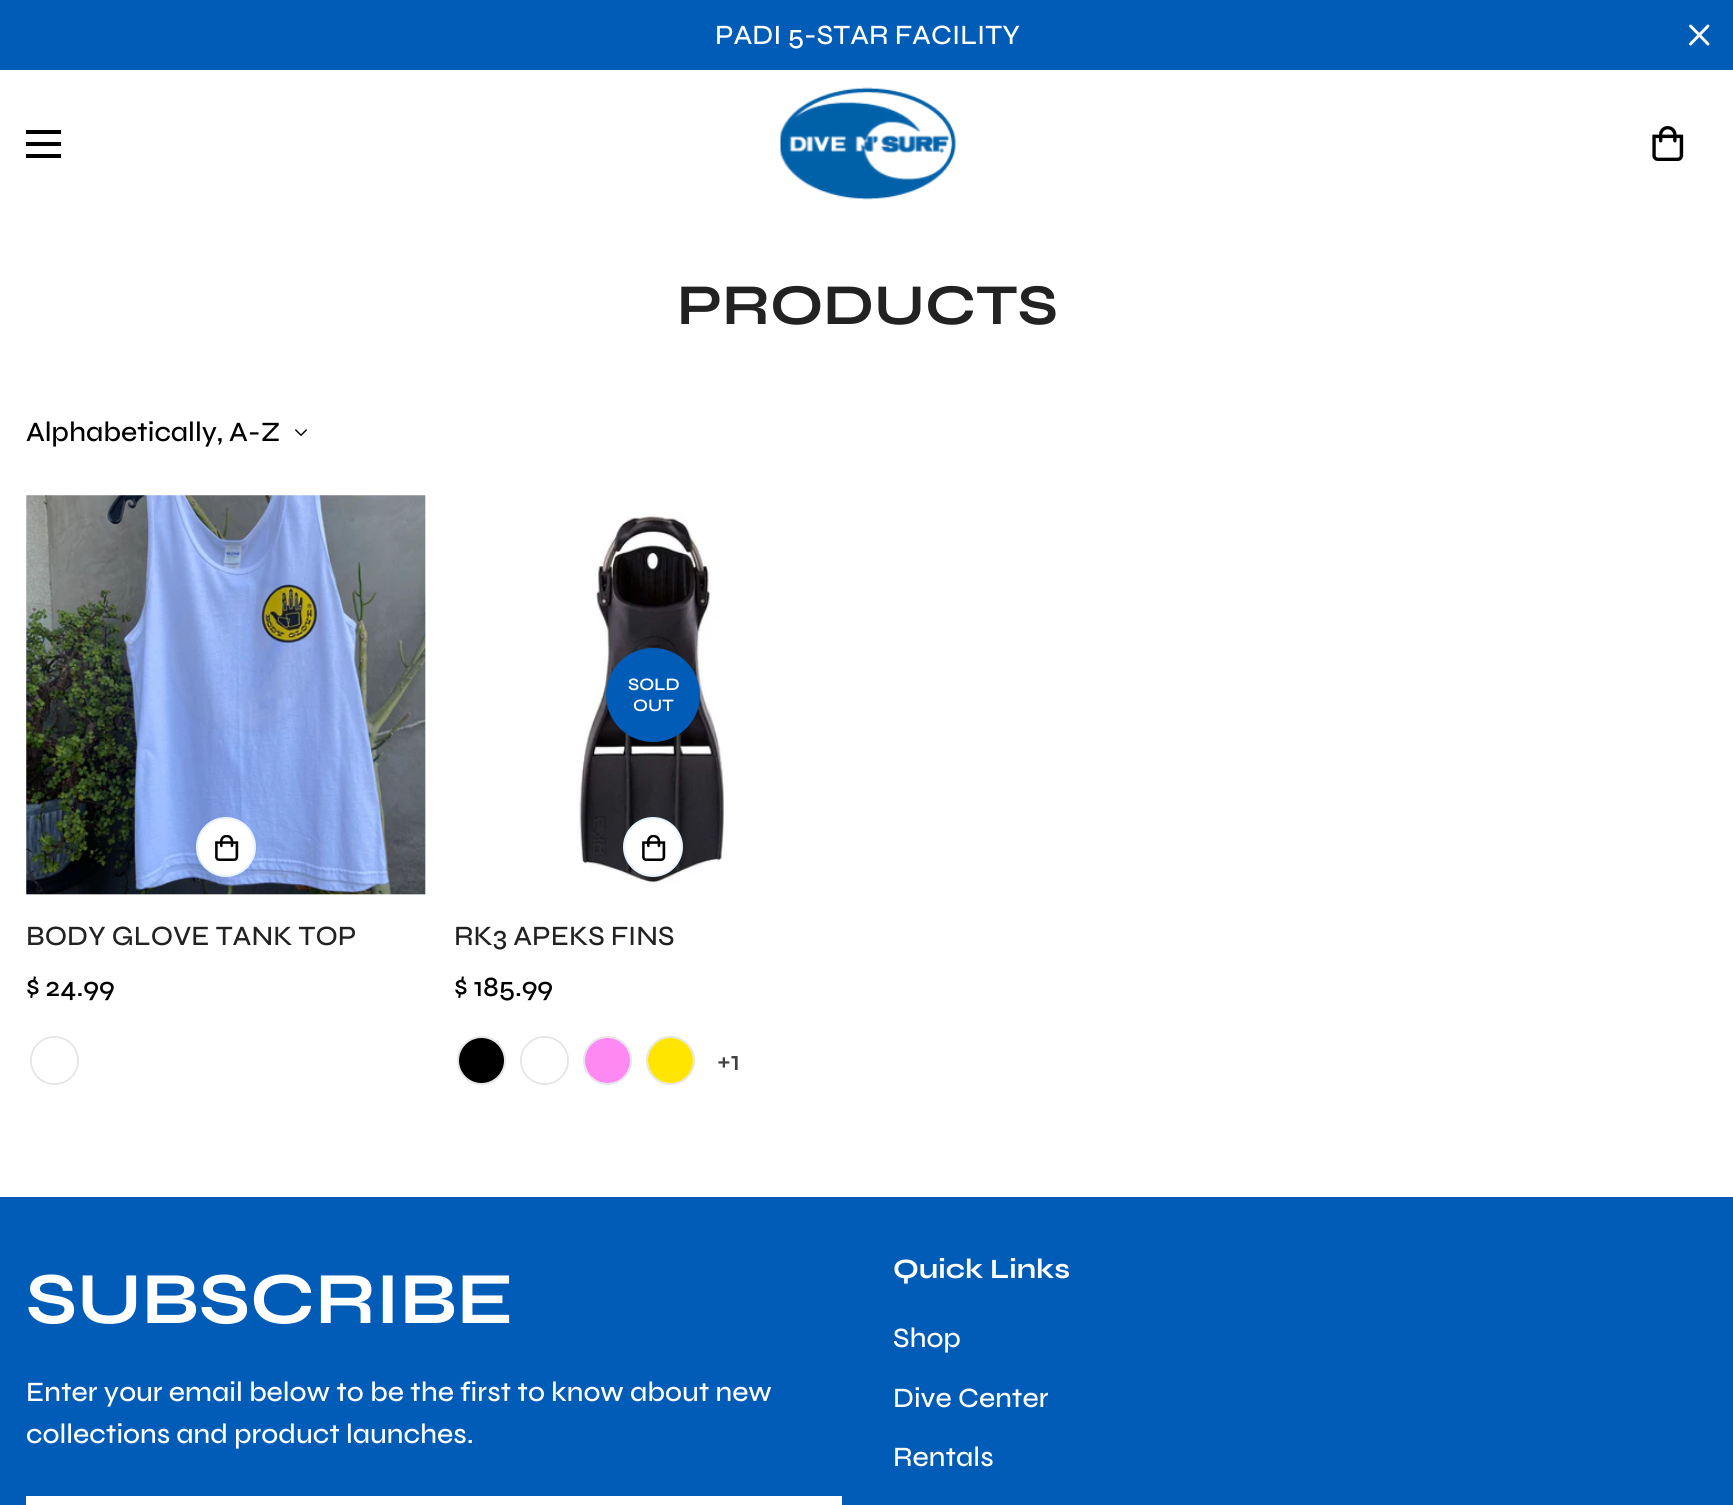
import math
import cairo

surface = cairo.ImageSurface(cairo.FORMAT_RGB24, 1733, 1505)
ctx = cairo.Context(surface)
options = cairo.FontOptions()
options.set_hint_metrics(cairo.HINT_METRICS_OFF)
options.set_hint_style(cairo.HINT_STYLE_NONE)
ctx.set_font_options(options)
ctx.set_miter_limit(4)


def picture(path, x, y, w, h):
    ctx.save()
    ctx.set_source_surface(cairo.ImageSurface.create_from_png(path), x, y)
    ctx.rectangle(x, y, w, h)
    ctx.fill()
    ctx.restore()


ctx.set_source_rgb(1, 1, 1)
ctx.paint()
ctx.set_source_rgb(0.004, 0.361, 0.718)
ctx.rectangle(0, 0, 1733, 70)
ctx.fill()
ctx.select_font_face("Syne Medium")
ctx.set_font_size(28)
ctx.set_source_rgb(1, 1, 1)
ctx.move_to(715, 44)
ctx.show_text("PADI 5-STAR FACILITY")
ctx.new_path()
ctx.move_to(1690.5, 44)
ctx.line_to(1708, 26)
ctx.move_to(1690.5, 26)
ctx.line_to(1708, 44)
ctx.set_line_width(2.9)
ctx.set_line_cap(cairo.LINE_CAP_ROUND)
ctx.set_line_join(cairo.LINE_JOIN_ROUND)
ctx.stroke()
ctx.set_source_rgb(0, 0, 0)
ctx.rectangle(26, 142, 35, 4)
ctx.fill()
ctx.rectangle(26, 130, 35, 4)
ctx.fill()
ctx.rectangle(26, 154, 35, 4)
ctx.fill()
picture("img1.png", 780, 87, 176, 113)
picture("img2.png", 1652, 126, 32, 35)
ctx.select_font_face("Syne", cairo.FONT_SLANT_NORMAL, cairo.FONT_WEIGHT_BOLD)
ctx.set_font_size(57.75)
ctx.set_source_rgb(0.133, 0.133, 0.133)
ctx.move_to(677, 324)
ctx.show_text("PRODUCTS")
ctx.select_font_face("Syne Medium")
ctx.set_font_size(28)
ctx.set_source_rgb(0, 0, 0)
ctx.move_to(26, 441)
ctx.show_text("Alphabetically, A-Z")
picture("img3.png", 295, 429, 12, 7)
picture("img4.png", 26, 495, 400, 400)
ctx.set_source_rgb(1, 1, 1)
ctx.arc(226, 847, 29, 0, 2 * math.pi)
ctx.fill_preserve()
ctx.set_source_rgb(0.914, 0.953, 0.996)
ctx.set_line_width(2)
ctx.set_line_cap(cairo.LINE_CAP_BUTT)
ctx.set_line_join(cairo.LINE_JOIN_MITER)
ctx.stroke()
picture("img5.png", 215, 835, 24, 26)
ctx.set_source_rgb(0.133, 0.133, 0.133)
ctx.move_to(26, 945)
ctx.show_text("BODY GLOVE TANK TOP")
ctx.set_source_rgb(0, 0, 0)
ctx.move_to(26, 996)
ctx.show_text("$ 24.99")
ctx.new_path()
ctx.arc(54.5, 1060.5, 23.5, 0, 2 * math.pi)
ctx.set_source_rgb(0.902, 0.902, 0.902)
ctx.stroke()
ctx.set_source_rgb(1, 1, 1)
ctx.arc(54.5, 1060.5, 22.5, 0, 2 * math.pi)
ctx.fill()
picture("img6.png", 577, 513, 148, 372)
ctx.set_source_rgb(0.004, 0.361, 0.718)
ctx.arc(653, 695, 47, 0, 2 * math.pi)
ctx.fill()
ctx.select_font_face("Syne SemiBold")
ctx.set_font_size(17.5)
ctx.set_source_rgb(1, 1, 1)
ctx.move_to(628, 690)
ctx.show_text("SOLD")
ctx.move_to(633, 711)
ctx.show_text("OUT")
ctx.new_path()
ctx.arc(653, 847, 29, 0, 2 * math.pi)
ctx.fill_preserve()
ctx.set_source_rgb(0.914, 0.953, 0.996)
ctx.stroke()
picture("img5.png", 642, 835, 24, 26)
ctx.select_font_face("Syne Medium")
ctx.set_font_size(28)
ctx.set_source_rgb(0.133, 0.133, 0.133)
ctx.move_to(454, 945)
ctx.show_text("RK3 APEKS FINS")
ctx.set_source_rgb(0, 0, 0)
ctx.move_to(454, 996)
ctx.show_text("$ 185.99")
ctx.new_path()
ctx.arc(481.5, 1060.5, 23.5, 0, 2 * math.pi)
ctx.set_source_rgb(0.902, 0.902, 0.902)
ctx.stroke()
ctx.set_source_rgb(0, 0, 0)
ctx.arc(481.5, 1060.5, 22.5, 0, 2 * math.pi)
ctx.fill()
ctx.arc(544.5, 1060.5, 23.5, 0, 2 * math.pi)
ctx.set_source_rgb(0.902, 0.902, 0.902)
ctx.stroke()
ctx.set_source_rgb(1, 1, 1)
ctx.arc(544.5, 1060.5, 22.5, 0, 2 * math.pi)
ctx.fill()
ctx.arc(607.5, 1060.5, 23.5, 0, 2 * math.pi)
ctx.set_source_rgb(0.902, 0.902, 0.902)
ctx.stroke()
ctx.set_source_rgb(1, 0.537, 0.949)
ctx.arc(607.5, 1060.5, 22.5, 0, 2 * math.pi)
ctx.fill()
ctx.arc(670.5, 1060.5, 23.5, 0, 2 * math.pi)
ctx.set_source_rgb(0.902, 0.902, 0.902)
ctx.stroke()
ctx.set_source_rgb(1, 0.898, 0)
ctx.arc(670.5, 1060.5, 22.5, 0, 2 * math.pi)
ctx.fill()
ctx.set_source_rgb(0.251, 0.251, 0.251)
ctx.move_to(717, 1070)
ctx.show_text("+1")
ctx.set_source_rgb(0.004, 0.361, 0.718)
ctx.rectangle(0, 1197, 1733, 308)
ctx.fill()
ctx.select_font_face("Syne", cairo.FONT_SLANT_NORMAL, cairo.FONT_WEIGHT_BOLD)
ctx.set_font_size(73.5)
ctx.set_source_rgb(1, 1, 1)
ctx.move_to(26, 1323)
ctx.show_text("SUBSCRIBE")
ctx.select_font_face("Syne Medium")
ctx.set_font_size(28)
ctx.move_to(26, 1401)
ctx.show_text("Enter your email below to be the first to know about new")
ctx.move_to(26, 1443)
ctx.show_text("collections and product launches.")
ctx.rectangle(26, 1496, 816, 9)
ctx.fill()
ctx.select_font_face("Syne", cairo.FONT_SLANT_NORMAL, cairo.FONT_WEIGHT_BOLD)
ctx.move_to(893, 1278)
ctx.show_text("Quick Links")
ctx.select_font_face("Syne Medium")
ctx.move_to(893, 1347)
ctx.show_text("Shop")
ctx.move_to(893, 1407)
ctx.show_text("Dive Center")
ctx.move_to(893, 1466)
ctx.show_text("Rentals")
surface.write_to_png("page.png")
